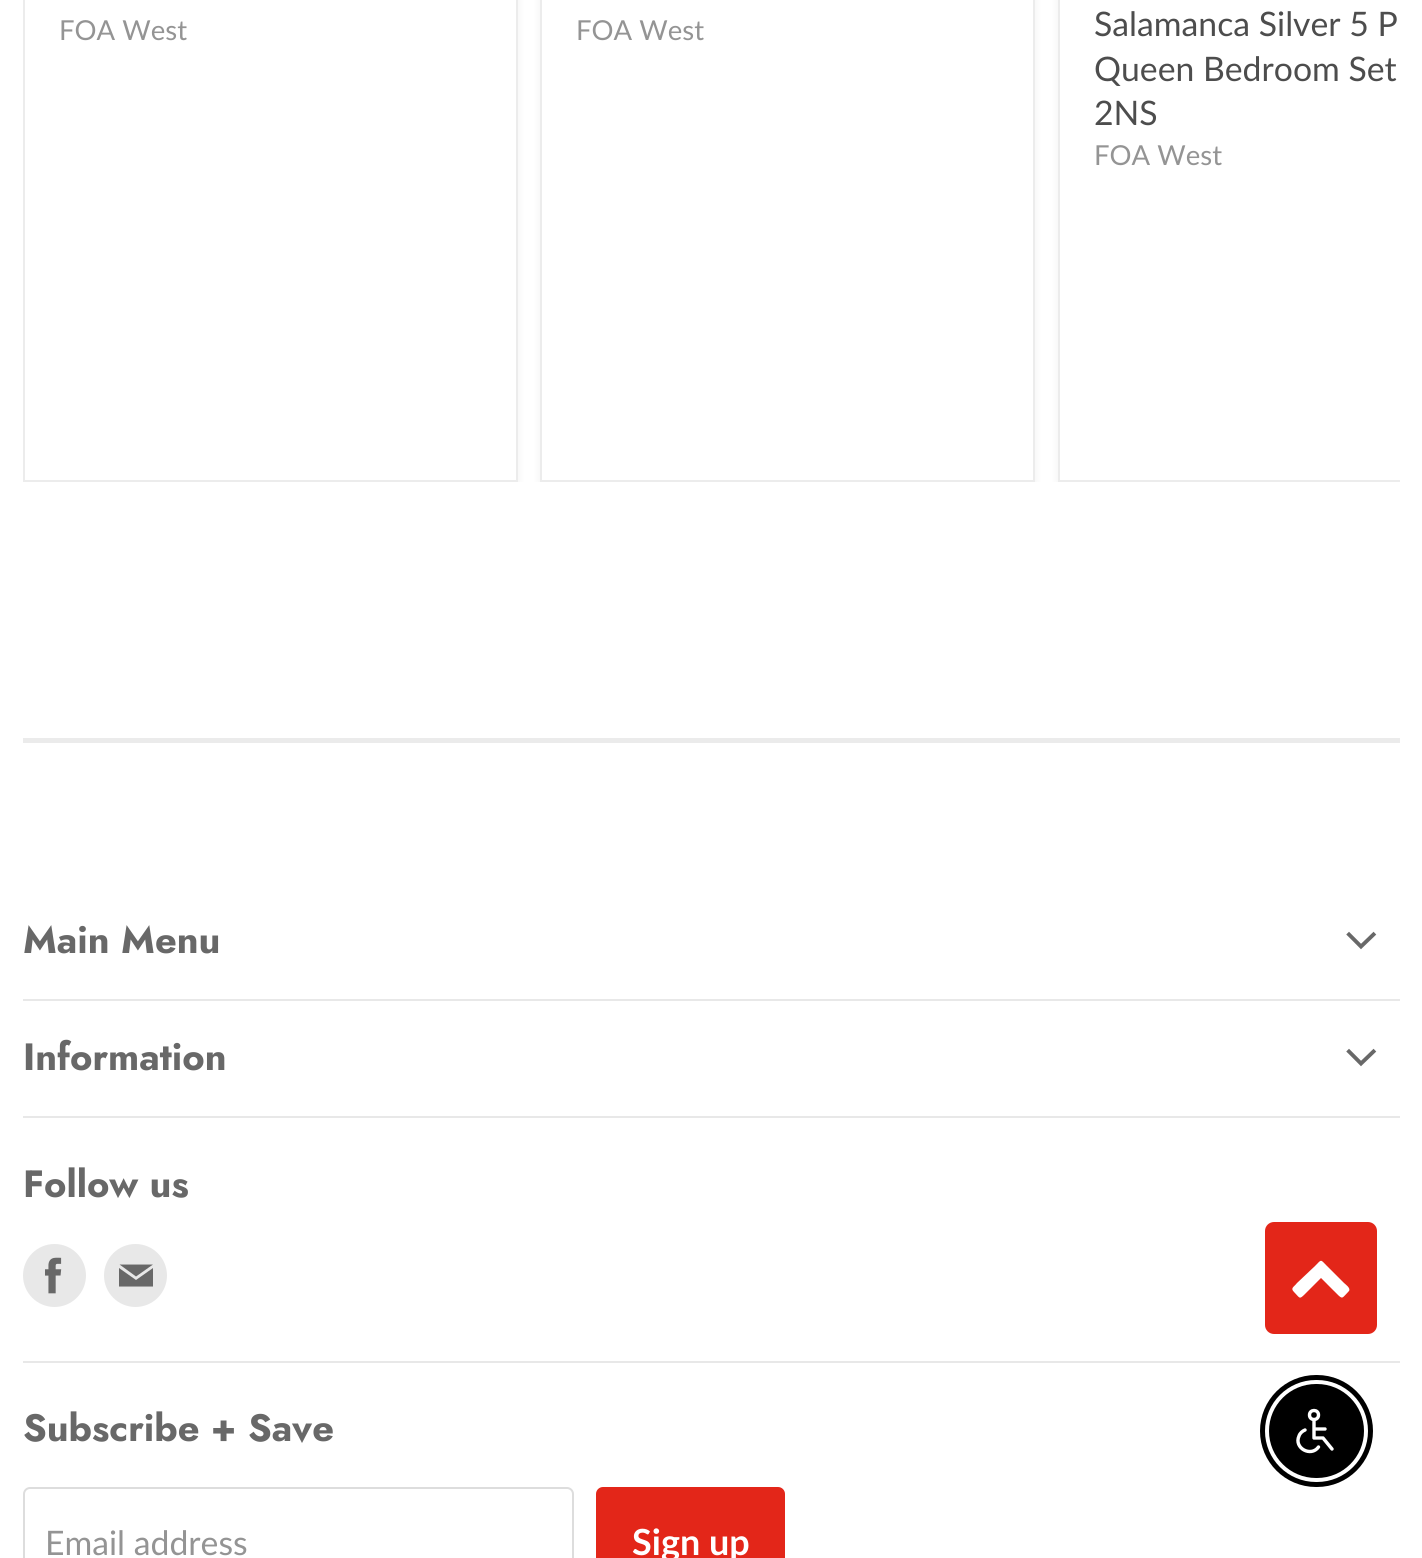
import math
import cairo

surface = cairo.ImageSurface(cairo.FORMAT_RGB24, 1422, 1558)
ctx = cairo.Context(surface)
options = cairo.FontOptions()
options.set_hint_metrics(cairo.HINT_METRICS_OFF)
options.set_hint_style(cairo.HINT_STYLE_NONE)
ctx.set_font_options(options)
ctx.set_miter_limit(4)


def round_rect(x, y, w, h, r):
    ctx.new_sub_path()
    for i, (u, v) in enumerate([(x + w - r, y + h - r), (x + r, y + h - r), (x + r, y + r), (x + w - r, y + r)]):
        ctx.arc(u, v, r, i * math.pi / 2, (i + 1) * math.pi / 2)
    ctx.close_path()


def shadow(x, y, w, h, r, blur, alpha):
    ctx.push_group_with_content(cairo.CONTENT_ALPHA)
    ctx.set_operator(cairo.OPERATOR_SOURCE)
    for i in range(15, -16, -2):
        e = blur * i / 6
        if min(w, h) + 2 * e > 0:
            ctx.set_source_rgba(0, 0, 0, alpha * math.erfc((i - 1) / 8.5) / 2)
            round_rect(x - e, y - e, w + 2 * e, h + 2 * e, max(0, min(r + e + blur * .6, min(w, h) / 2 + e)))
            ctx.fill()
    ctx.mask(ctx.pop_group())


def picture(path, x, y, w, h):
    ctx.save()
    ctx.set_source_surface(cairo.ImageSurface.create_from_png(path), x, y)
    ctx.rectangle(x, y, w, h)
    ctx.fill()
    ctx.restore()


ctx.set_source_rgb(1, 1, 1)
ctx.paint()
ctx.save()
ctx.rectangle(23, 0, 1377, 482)
ctx.clip()
ctx.set_source_rgb(0.502, 0.502, 0.502)
shadow(23, -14, 495, 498, 0, 4.5, 0.11)
ctx.restore()
ctx.set_source_rgb(1, 1, 1)
ctx.rectangle(24, -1, 493, 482)
ctx.fill_preserve()
ctx.set_source_rgb(0.922, 0.922, 0.922)
ctx.stroke()
ctx.select_font_face("Lato")
ctx.set_font_size(27.5)
ctx.set_source_rgb(0.58, 0.58, 0.58)
ctx.move_to(59, 40)
ctx.show_text("FOA West")
ctx.save()
ctx.rectangle(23, 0, 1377, 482)
ctx.clip()
ctx.set_source_rgb(0.502, 0.502, 0.502)
shadow(540, -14, 495, 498, 0, 4.5, 0.11)
ctx.restore()
ctx.set_source_rgb(1, 1, 1)
ctx.rectangle(541, -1, 493, 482)
ctx.fill_preserve()
ctx.set_source_rgb(0.922, 0.922, 0.922)
ctx.stroke()
ctx.set_source_rgb(0.58, 0.58, 0.58)
ctx.move_to(576, 40)
ctx.show_text("FOA West")
ctx.save()
ctx.rectangle(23, 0, 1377, 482)
ctx.clip()
ctx.set_source_rgb(0.502, 0.502, 0.502)
shadow(1058, -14, 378, 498, 0, 4.5, 0.11)
ctx.restore()
ctx.set_source_rgb(1, 1, 1)
ctx.rectangle(1060, 0, 340, 480)
ctx.fill()
ctx.save()
ctx.rectangle(23, 0, 1377, 482)
ctx.clip()
ctx.rectangle(1059, -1, 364, 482)
ctx.set_source_rgb(0.922, 0.922, 0.922)
ctx.stroke()
ctx.restore()
ctx.set_font_size(33.75)
ctx.set_source_rgb(0.302, 0.302, 0.302)
ctx.move_to(1094, 36)
ctx.show_text("Salamanca Silver 5 P")
ctx.move_to(1094, 81)
ctx.show_text("Queen Bedroom Set")
ctx.move_to(1094, 125)
ctx.show_text("2NS")
ctx.set_font_size(27.5)
ctx.set_source_rgb(0.58, 0.58, 0.58)
ctx.move_to(1094, 165)
ctx.show_text("FOA West")
ctx.set_source_rgba(0.502, 0.502, 0.502, 0.16)
ctx.rectangle(23, 738, 1377, 5)
ctx.fill()
ctx.set_source_rgb(0.91, 0.91, 0.91)
ctx.rectangle(23, 999, 1377, 2)
ctx.fill()
ctx.select_font_face("Jost", cairo.FONT_SLANT_NORMAL, cairo.FONT_WEIGHT_BOLD)
ctx.set_font_size(38)
ctx.set_source_rgb(0.408, 0.408, 0.408)
ctx.move_to(23, 953)
ctx.show_text("Main Menu")
ctx.new_path()
ctx.move_to(1361, 946.5)
ctx.line_to(1373.5, 934.5)
ctx.move_to(1361, 946.5)
ctx.line_to(1349, 934.5)
ctx.set_line_width(3.9)
ctx.set_line_cap(cairo.LINE_CAP_SQUARE)
ctx.stroke()
ctx.set_source_rgb(0.91, 0.91, 0.91)
ctx.rectangle(23, 1116, 1377, 2)
ctx.fill()
ctx.set_source_rgb(0.408, 0.408, 0.408)
ctx.move_to(23, 1070)
ctx.show_text("Information")
ctx.new_path()
ctx.move_to(1361, 1063.5)
ctx.line_to(1373.5, 1051.5)
ctx.move_to(1361, 1063.5)
ctx.line_to(1349, 1051.5)
ctx.stroke()
ctx.set_source_rgb(0.91, 0.91, 0.91)
ctx.rectangle(23, 1361, 1377, 2)
ctx.fill()
ctx.set_source_rgb(0.408, 0.408, 0.408)
ctx.move_to(23, 1197)
ctx.show_text("Follow us")
ctx.set_source_rgb(0.91, 0.91, 0.91)
ctx.new_path()
ctx.arc(54.5, 1275.5, 31.5, 0, 2 * math.pi)
ctx.fill()
picture("img1.png", 45, 1257, 17, 37)
ctx.arc(135.5, 1275.5, 31.5, 0, 2 * math.pi)
ctx.fill()
ctx.set_source_rgb(0.408, 0.408, 0.408)
ctx.set_fill_rule(cairo.FILL_RULE_EVEN_ODD)
ctx.new_path()
ctx.move_to(153, 1264.5)
ctx.line_to(119.5, 1264.5)
ctx.line_to(136, 1276.5)
ctx.close_path()
ctx.move_to(136, 1280)
ctx.line_to(119, 1268)
ctx.line_to(119, 1286.5)
ctx.line_to(153, 1286.5)
ctx.line_to(153, 1268)
ctx.close_path()
ctx.fill()
ctx.move_to(23, 1441)
ctx.show_text("Subscribe + Save")
round_rect(24, 1488, 549, 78, 6)
ctx.set_source_rgb(0.867, 0.867, 0.867)
ctx.set_line_width(2)
ctx.set_line_cap(cairo.LINE_CAP_BUTT)
ctx.stroke()
ctx.select_font_face("Lato")
ctx.set_font_size(33.75)
ctx.set_source_rgb(0.58, 0.58, 0.58)
ctx.move_to(45, 1555)
ctx.show_text("Email address")
ctx.set_source_rgb(0.89, 0.149, 0.098)
round_rect(597, 1488, 187, 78, 6)
ctx.fill_preserve()
ctx.stroke()
ctx.select_font_face("Lato", cairo.FONT_SLANT_NORMAL, cairo.FONT_WEIGHT_BOLD)
ctx.set_font_size(36)
ctx.set_source_rgb(1, 1, 1)
ctx.move_to(632, 1555)
ctx.show_text("Sign up")
ctx.set_source_rgb(0.89, 0.149, 0.098)
round_rect(1265, 1222, 112, 112, 9)
ctx.fill()
ctx.set_source_rgb(1, 1, 1)
ctx.set_fill_rule(cairo.FILL_RULE_WINDING)
ctx.new_path()
ctx.move_to(1349, 1291)
ctx.curve_to(1342, 1298, 1343, 1300, 1337, 1294)
ctx.line_to(1321, 1278)
ctx.line_to(1305, 1294)
ctx.curve_to(1299, 1300, 1300, 1298, 1294, 1292)
ctx.curve_to(1290, 1288, 1294, 1287, 1297, 1283)
ctx.line_to(1315, 1266)
ctx.curve_to(1322, 1259, 1320, 1259, 1327, 1266)
ctx.line_to(1344, 1283)
ctx.curve_to(1345, 1284, 1351, 1288, 1349, 1291)
ctx.close_path()
ctx.fill()
round_rect(1262.5, 1377.5, 108, 107, 53.5)
ctx.set_source_rgb(0, 0, 0)
ctx.set_line_width(5)
ctx.stroke()
round_rect(1270, 1385, 93, 92, 46)
ctx.fill_preserve()
ctx.set_line_width(2)
ctx.stroke()
ctx.arc(1314, 1415, 4.5, 0, 2 * math.pi)
ctx.set_source_rgb(1, 1, 1)
ctx.set_line_width(3.4)
ctx.stroke()
ctx.new_path()
ctx.move_to(1314, 1420)
ctx.line_to(1314, 1438)
ctx.line_to(1323, 1438)
ctx.line_to(1332, 1449)
ctx.move_to(1314, 1429)
ctx.line_to(1325, 1429)
ctx.move_to(1305, 1430)
ctx.curve_to(1302.5, 1431, 1300, 1433, 1299, 1436)
ctx.curve_to(1293.5, 1448, 1311, 1457.5, 1318.5, 1447)
ctx.set_line_cap(cairo.LINE_CAP_ROUND)
ctx.set_line_join(cairo.LINE_JOIN_ROUND)
ctx.stroke()
surface.write_to_png("page.png")
